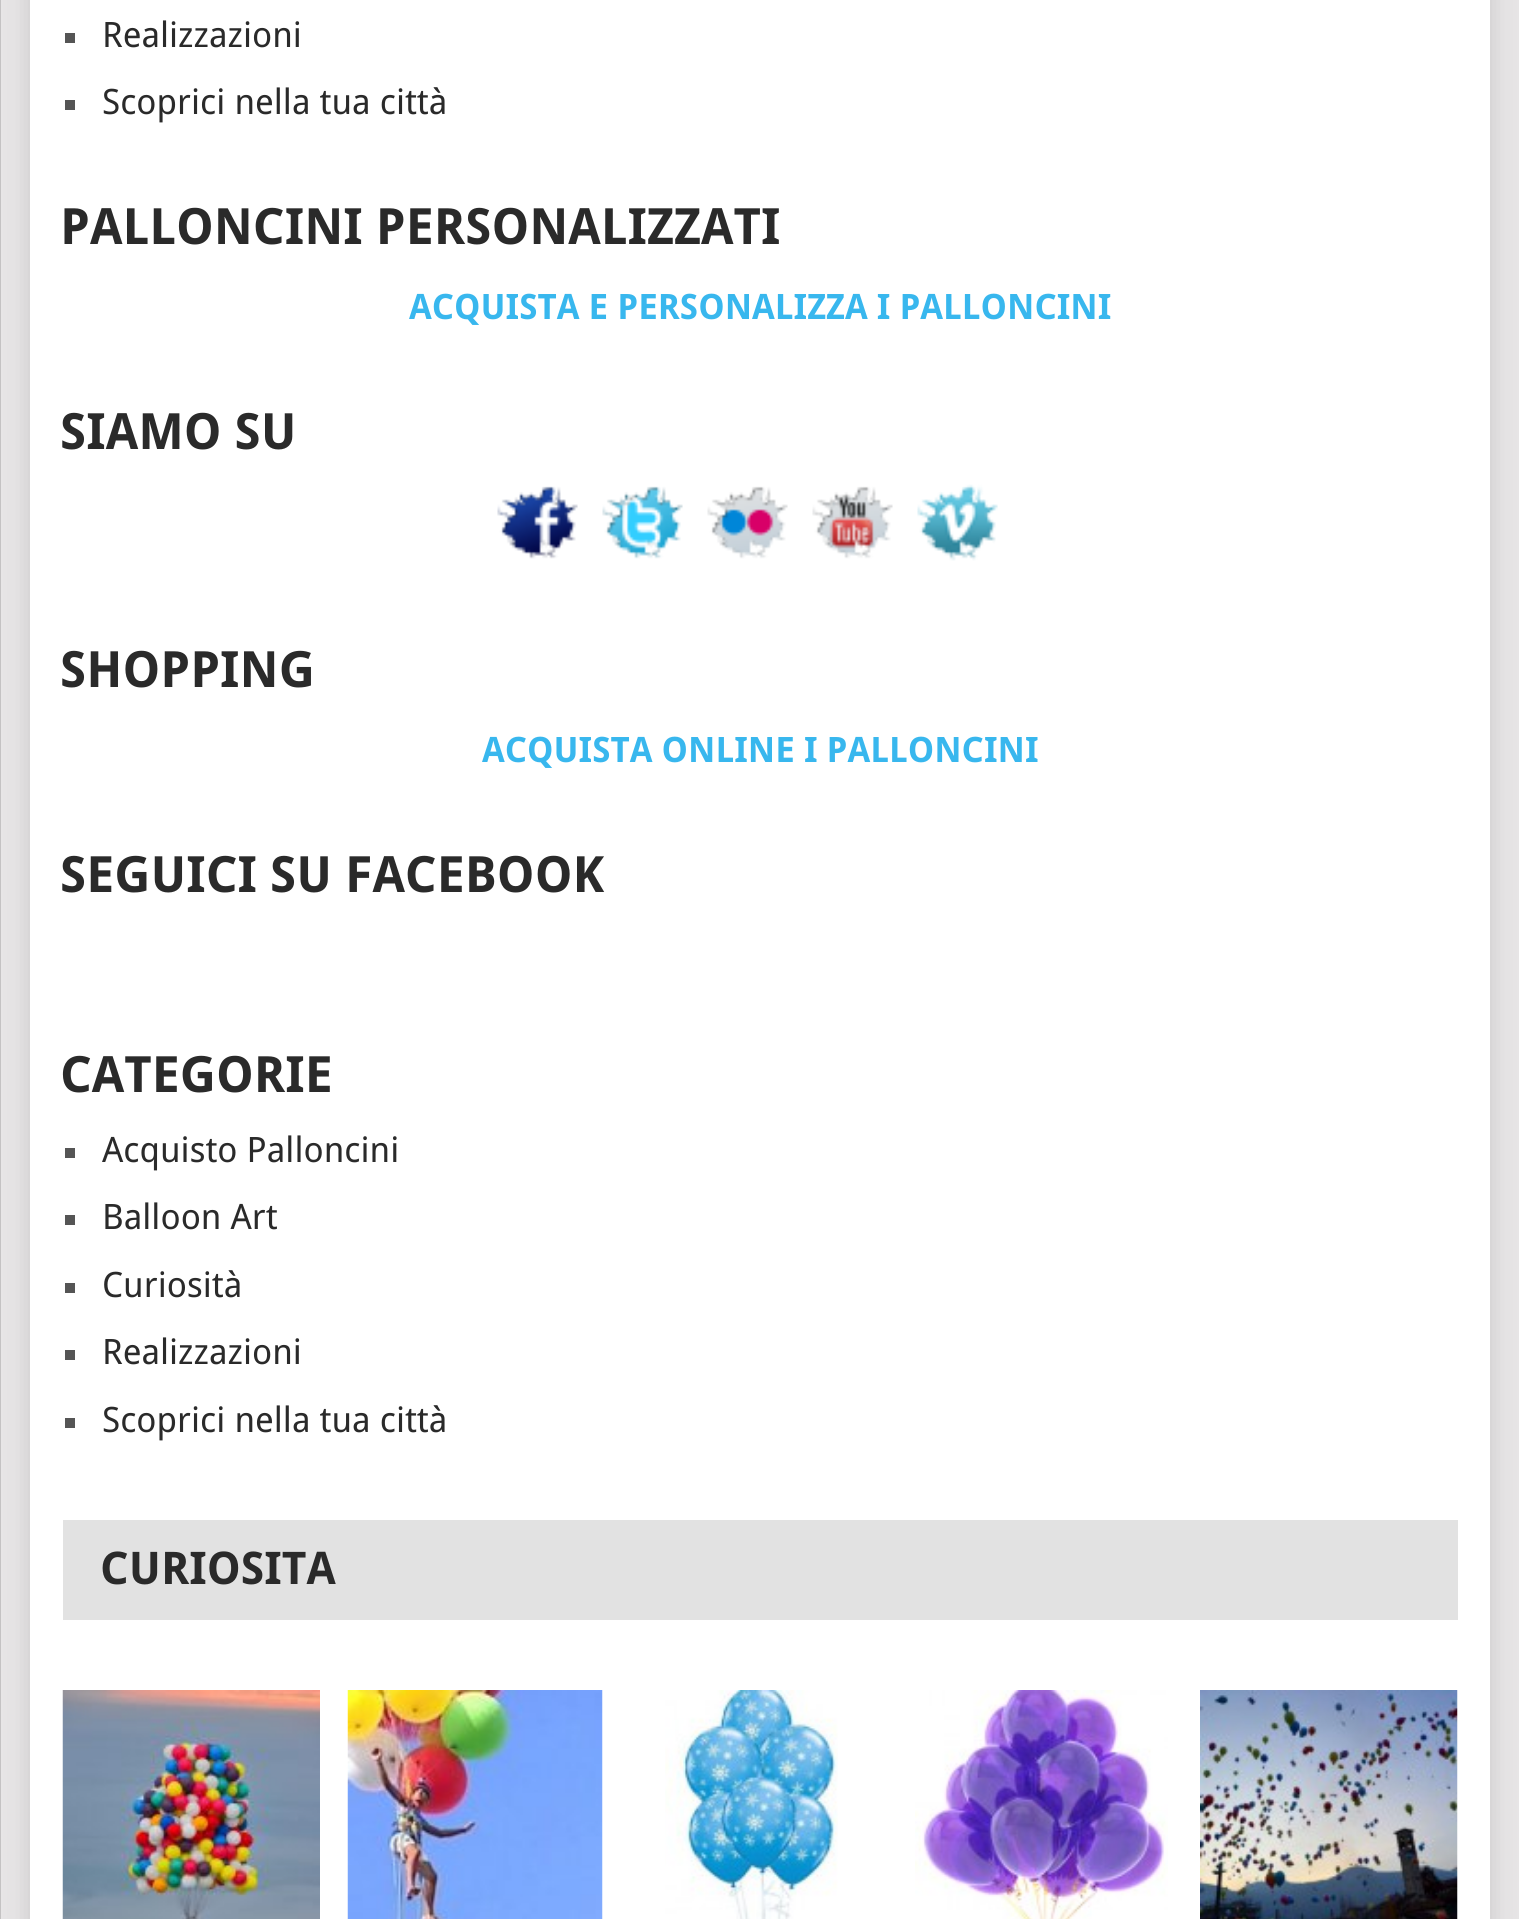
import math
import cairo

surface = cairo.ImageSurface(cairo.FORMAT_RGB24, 1519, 1919)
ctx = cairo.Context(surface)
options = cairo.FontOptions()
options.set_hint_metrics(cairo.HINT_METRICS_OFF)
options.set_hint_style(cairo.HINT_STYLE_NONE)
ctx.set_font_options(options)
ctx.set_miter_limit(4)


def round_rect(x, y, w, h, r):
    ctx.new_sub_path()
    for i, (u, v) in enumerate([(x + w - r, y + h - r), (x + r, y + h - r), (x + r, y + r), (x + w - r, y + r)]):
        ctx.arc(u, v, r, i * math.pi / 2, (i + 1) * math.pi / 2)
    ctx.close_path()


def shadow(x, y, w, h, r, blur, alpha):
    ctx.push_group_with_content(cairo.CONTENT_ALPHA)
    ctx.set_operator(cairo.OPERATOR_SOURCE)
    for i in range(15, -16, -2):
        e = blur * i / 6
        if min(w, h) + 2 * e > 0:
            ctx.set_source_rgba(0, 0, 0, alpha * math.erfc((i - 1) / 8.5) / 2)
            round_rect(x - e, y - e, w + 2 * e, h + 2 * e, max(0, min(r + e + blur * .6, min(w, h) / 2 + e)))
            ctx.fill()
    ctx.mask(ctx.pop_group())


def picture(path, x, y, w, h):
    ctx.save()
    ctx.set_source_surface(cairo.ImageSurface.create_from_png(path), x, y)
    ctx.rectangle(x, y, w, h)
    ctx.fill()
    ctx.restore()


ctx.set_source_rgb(0.906, 0.898, 0.902)
ctx.paint()
ctx.set_source_rgb(0.196, 0.196, 0.196)
shadow(30, -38, 1460, 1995, 0, 12.5, 0.17)
ctx.set_source_rgb(1, 1, 1)
ctx.rectangle(30, 0, 1460, 1919)
ctx.fill()
ctx.set_source_rgb(0.769, 0.761, 0.765)
ctx.rectangle(0, 0, 1, 1919)
ctx.fill()
ctx.set_source_rgb(0.333, 0.333, 0.333)
ctx.rectangle(65, 33, 10, 10)
ctx.fill()
ctx.select_font_face("Droid Sans")
ctx.set_font_size(35)
ctx.set_source_rgb(0.165, 0.165, 0.165)
ctx.move_to(102, 47)
ctx.show_text("Realizzazioni")
ctx.set_source_rgb(0.333, 0.333, 0.333)
ctx.rectangle(65, 100, 10, 10)
ctx.fill()
ctx.set_source_rgb(0.165, 0.165, 0.165)
ctx.move_to(102, 114)
ctx.show_text("Scoprici nella tua città")
ctx.select_font_face("Droid Sans", cairo.FONT_SLANT_NORMAL, cairo.FONT_WEIGHT_BOLD)
ctx.set_font_size(50)
ctx.move_to(60, 244)
ctx.show_text("PALLONCINI PERSONALIZZATI")
ctx.set_font_size(35)
ctx.set_source_rgb(0.22, 0.718, 0.933)
ctx.move_to(409, 319)
ctx.show_text("ACQUISTA E PERSONALIZZA I PALLONCINI")
ctx.set_font_size(50)
ctx.set_source_rgb(0.165, 0.165, 0.165)
ctx.move_to(60, 449)
ctx.show_text("SIAMO SU")
picture("img1.png", 497, 486, 81, 73)
picture("img2.png", 602, 486, 81, 73)
picture("img3.png", 707, 486, 81, 73)
picture("img4.png", 812, 486, 81, 73)
picture("img5.png", 917, 484, 81, 77)
ctx.move_to(60, 687)
ctx.show_text("SHOPPING")
ctx.set_font_size(35)
ctx.set_source_rgb(0.22, 0.718, 0.933)
ctx.move_to(482, 762)
ctx.show_text("ACQUISTA ONLINE I PALLONCINI")
ctx.set_font_size(50)
ctx.set_source_rgb(0.165, 0.165, 0.165)
ctx.move_to(60, 892)
ctx.show_text("SEGUICI SU FACEBOOK")
ctx.move_to(60, 1092)
ctx.show_text("CATEGORIE")
ctx.set_source_rgb(0.333, 0.333, 0.333)
ctx.rectangle(65, 1148, 10, 10)
ctx.fill()
ctx.select_font_face("Droid Sans")
ctx.set_font_size(35)
ctx.set_source_rgb(0.165, 0.165, 0.165)
ctx.move_to(102, 1162)
ctx.show_text("Acquisto Palloncini")
ctx.set_source_rgb(0.333, 0.333, 0.333)
ctx.rectangle(65, 1215, 10, 10)
ctx.fill()
ctx.set_source_rgb(0.165, 0.165, 0.165)
ctx.move_to(102, 1229)
ctx.show_text("Balloon Art")
ctx.set_source_rgb(0.333, 0.333, 0.333)
ctx.rectangle(65, 1283, 10, 10)
ctx.fill()
ctx.set_source_rgb(0.165, 0.165, 0.165)
ctx.move_to(102, 1297)
ctx.show_text("Curiosità")
ctx.set_source_rgb(0.333, 0.333, 0.333)
ctx.rectangle(65, 1350, 10, 10)
ctx.fill()
ctx.set_source_rgb(0.165, 0.165, 0.165)
ctx.move_to(102, 1364)
ctx.show_text("Realizzazioni")
ctx.set_source_rgb(0.333, 0.333, 0.333)
ctx.rectangle(65, 1418, 10, 10)
ctx.fill()
ctx.set_source_rgb(0.165, 0.165, 0.165)
ctx.move_to(102, 1432)
ctx.show_text("Scoprici nella tua città")
ctx.set_source_rgb(0.886, 0.886, 0.886)
ctx.rectangle(63, 1520, 1395, 100)
ctx.fill()
ctx.select_font_face("Droid Sans", cairo.FONT_SLANT_NORMAL, cairo.FONT_WEIGHT_BOLD)
ctx.set_font_size(45)
ctx.set_source_rgb(0.165, 0.165, 0.165)
ctx.move_to(100, 1584)
ctx.show_text("CURIOSITA")
picture("img6.png", 62, 1690, 258, 229)
picture("img7.png", 347, 1690, 256, 229)
picture("img8.png", 665, 1690, 173, 229)
picture("img9.png", 915, 1690, 253, 229)
picture("img10.png", 1200, 1690, 258, 229)
surface.write_to_png("page.png")
